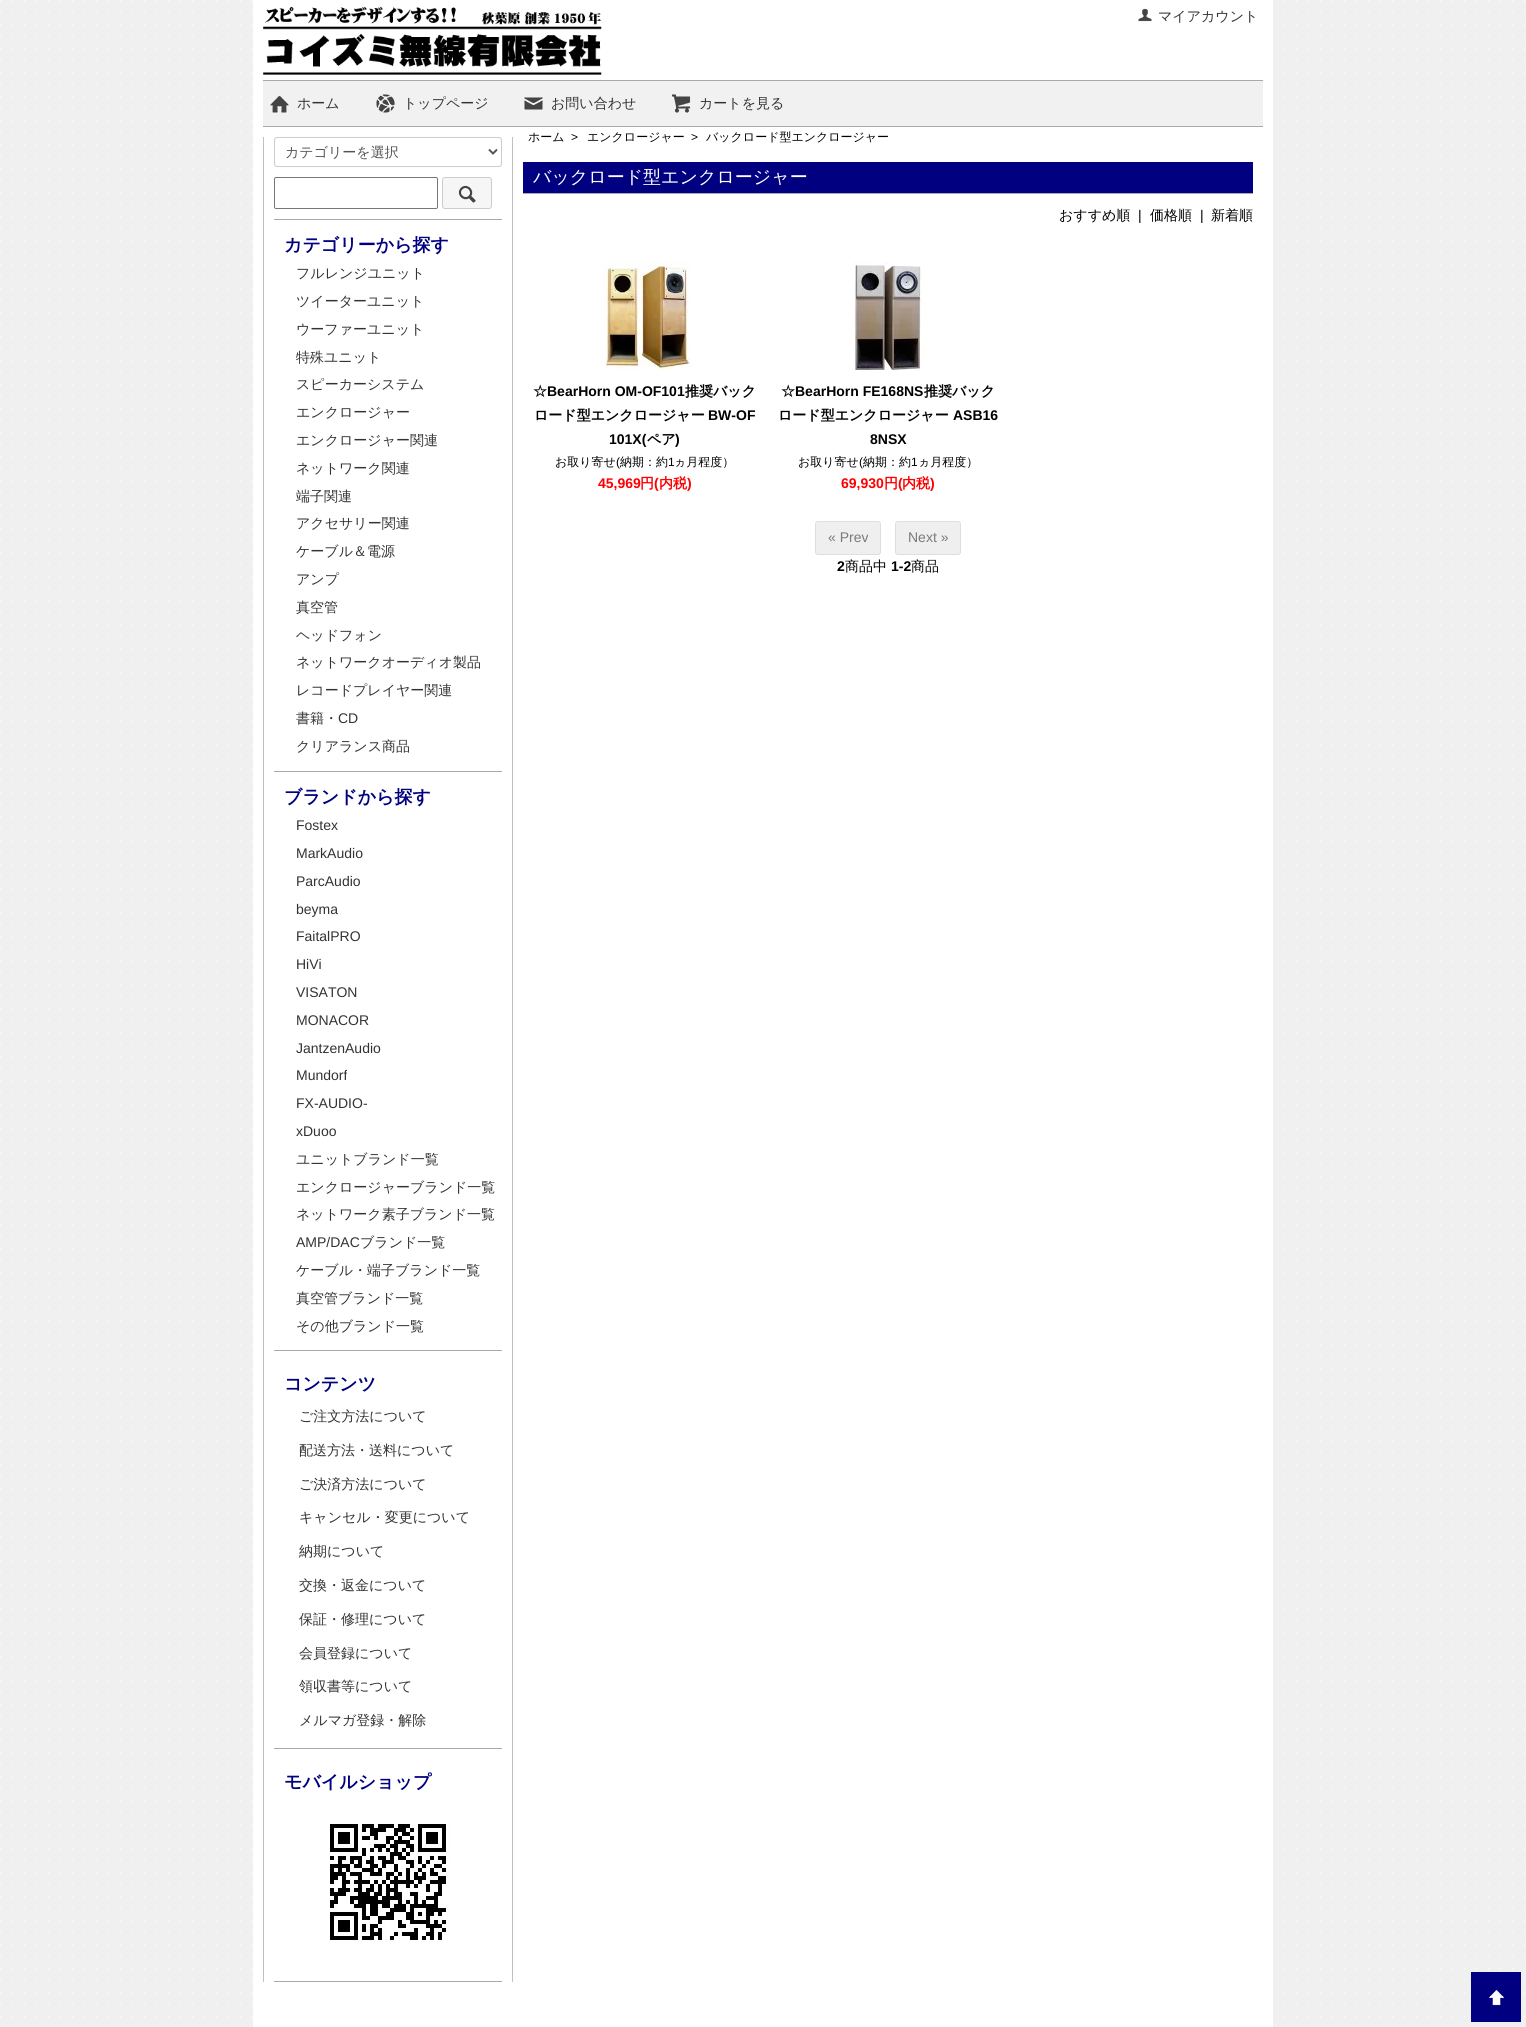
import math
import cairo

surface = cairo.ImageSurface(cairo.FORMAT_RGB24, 1526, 2027)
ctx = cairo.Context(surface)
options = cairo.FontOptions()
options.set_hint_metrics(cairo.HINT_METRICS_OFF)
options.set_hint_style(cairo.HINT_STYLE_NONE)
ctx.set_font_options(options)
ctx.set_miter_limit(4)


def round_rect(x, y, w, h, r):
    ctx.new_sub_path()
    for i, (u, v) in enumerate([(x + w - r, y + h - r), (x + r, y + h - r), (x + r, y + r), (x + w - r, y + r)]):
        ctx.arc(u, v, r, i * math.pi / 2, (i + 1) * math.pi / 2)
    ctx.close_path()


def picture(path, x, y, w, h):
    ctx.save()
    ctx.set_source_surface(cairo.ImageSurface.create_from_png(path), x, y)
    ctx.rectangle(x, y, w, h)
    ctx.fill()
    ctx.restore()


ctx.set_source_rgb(0.941, 0.941, 0.941)
ctx.paint()
picture("img1.png", 0, 0, 1525, 2017)
ctx.set_source_rgb(1, 1, 1)
ctx.rectangle(253, 0, 1020, 2027)
ctx.fill()
picture("img2.png", 263, 6, 339, 69)
picture("img3.png", 1138, 8, 14, 14)
ctx.select_font_face("WenQuanYi Zen Hei Medium")
ctx.set_font_size(14)
ctx.set_source_rgb(0.2, 0.2, 0.2)
ctx.move_to(1158, 21)
ctx.show_text("マイアカウント")
ctx.set_source_rgb(0.945, 0.945, 0.945)
ctx.rectangle(263, 81, 1000, 45)
ctx.fill()
ctx.set_source_rgb(0.663, 0.663, 0.663)
ctx.rectangle(263, 80, 1000, 1)
ctx.fill()
ctx.rectangle(263, 126, 1000, 1)
ctx.fill()
picture("img4.png", 270, 95, 19, 18)
ctx.set_source_rgb(0.2, 0.2, 0.2)
ctx.move_to(297, 108)
ctx.show_text("ホーム")
picture("img5.png", 376, 94, 19, 19)
ctx.move_to(403, 108)
ctx.show_text("トップページ")
picture("img6.png", 524, 97, 19, 13)
ctx.move_to(551, 108)
ctx.show_text("お問い合わせ")
picture("img7.png", 671, 94, 20, 19)
ctx.move_to(699, 108)
ctx.show_text("カートを見る")
ctx.set_source_rgb(0.753, 0.753, 0.753)
ctx.rectangle(512, 137, 1, 1845)
ctx.fill()
ctx.rectangle(263, 137, 1, 1845)
ctx.fill()
ctx.set_source_rgb(0.663, 0.663, 0.663)
ctx.rectangle(274, 219, 228, 1)
ctx.fill()
round_rect(274.5, 137.5, 227, 29, 2.5)
ctx.set_source_rgb(0.8, 0.8, 0.8)
ctx.set_line_width(1)
ctx.stroke()
ctx.new_path()
ctx.move_to(489, 149.5)
ctx.line_to(493, 153.5)
ctx.line_to(497, 149.5)
ctx.set_source_rgb(0.333, 0.333, 0.333)
ctx.set_line_width(2)
ctx.stroke()
ctx.move_to(285, 157)
ctx.show_text("カテゴリーを選択")
round_rect(274.5, 177.5, 163, 31, 1.5)
ctx.set_source_rgb(0.463, 0.463, 0.463)
ctx.set_line_width(1)
ctx.stroke()
ctx.set_source_rgb(0.961, 0.961, 0.961)
round_rect(442.5, 177.5, 49, 31, 2.5)
ctx.fill_preserve()
ctx.set_source_rgb(0.8, 0.8, 0.8)
ctx.stroke()
picture("img8.png", 458, 185, 18, 18)
ctx.select_font_face("WenQuanYi Zen Hei", cairo.FONT_SLANT_NORMAL, cairo.FONT_WEIGHT_BOLD)
ctx.set_font_size(18)
ctx.set_source_rgb(0, 0, 0.502)
ctx.move_to(284, 251)
ctx.show_text("カテゴリーから探す")
ctx.set_source_rgb(0.663, 0.663, 0.663)
ctx.rectangle(274, 771, 228, 1)
ctx.fill()
ctx.select_font_face("WenQuanYi Zen Hei Medium")
ctx.set_font_size(14)
ctx.set_source_rgb(0.2, 0.2, 0.2)
ctx.move_to(296, 278)
ctx.show_text("フルレンジユニット")
ctx.move_to(296, 306)
ctx.show_text("ツイーターユニット")
ctx.move_to(296, 334)
ctx.show_text("ウーファーユニット")
ctx.move_to(296, 362)
ctx.show_text("特殊ユニット")
ctx.move_to(296, 389)
ctx.show_text("スピーカーシステム")
ctx.move_to(296, 417)
ctx.show_text("エンクロージャー")
ctx.move_to(296, 445)
ctx.show_text("エンクロージャー関連")
ctx.move_to(296, 473)
ctx.show_text("ネットワーク関連")
ctx.move_to(296, 501)
ctx.show_text("端子関連")
ctx.move_to(296, 528)
ctx.show_text("アクセサリー関連")
ctx.move_to(296, 556)
ctx.show_text("ケーブル＆電源")
ctx.move_to(296, 584)
ctx.show_text("アンプ")
ctx.move_to(296, 612)
ctx.show_text("真空管")
ctx.move_to(296, 640)
ctx.show_text("ヘッドフォン")
ctx.move_to(296, 667)
ctx.show_text("ネットワークオーディオ製品")
ctx.move_to(296, 695)
ctx.show_text("レコードプレイヤー関連")
ctx.move_to(296, 723)
ctx.show_text("書籍・")
ctx.select_font_face("Liberation Sans")
ctx.move_to(338, 723)
ctx.show_text("CD")
ctx.select_font_face("WenQuanYi Zen Hei Medium")
ctx.move_to(296, 751)
ctx.show_text("クリアランス商品")
ctx.select_font_face("WenQuanYi Zen Hei", cairo.FONT_SLANT_NORMAL, cairo.FONT_WEIGHT_BOLD)
ctx.set_font_size(18)
ctx.set_source_rgb(0, 0, 0.502)
ctx.move_to(284, 803)
ctx.show_text("ブランドから探す")
ctx.set_source_rgb(0.663, 0.663, 0.663)
ctx.rectangle(274, 1350, 228, 1)
ctx.fill()
ctx.select_font_face("Liberation Sans")
ctx.set_font_size(14)
ctx.set_source_rgb(0.2, 0.2, 0.2)
ctx.move_to(296, 830)
ctx.show_text("Fostex")
ctx.move_to(296, 858)
ctx.show_text("MarkAudio")
ctx.move_to(296, 886)
ctx.show_text("ParcAudio")
ctx.move_to(296, 914)
ctx.show_text("beyma")
ctx.move_to(296, 941)
ctx.show_text("FaitalPRO")
ctx.move_to(296, 969)
ctx.show_text("HiVi")
ctx.move_to(296, 997)
ctx.show_text("VISATON")
ctx.move_to(296, 1025)
ctx.show_text("MONACOR")
ctx.move_to(296, 1053)
ctx.show_text("JantzenAudio")
ctx.move_to(296, 1080)
ctx.show_text("Mundorf")
ctx.move_to(296, 1108)
ctx.show_text("FX-AUDIO-")
ctx.move_to(296, 1136)
ctx.show_text("xDuoo")
ctx.select_font_face("WenQuanYi Zen Hei Medium")
ctx.move_to(296, 1164)
ctx.show_text("ユニットブランド一覧")
ctx.move_to(296, 1192)
ctx.show_text("エンクロージャーブランド一覧")
ctx.move_to(296, 1219)
ctx.show_text("ネットワーク素子ブランド一覧")
ctx.select_font_face("Liberation Sans")
ctx.move_to(296, 1247)
ctx.show_text("AMP/DAC")
ctx.select_font_face("WenQuanYi Zen Hei Medium")
ctx.move_to(360, 1247)
ctx.show_text("ブランド一覧")
ctx.move_to(296, 1275)
ctx.show_text("ケーブル・端子ブランド一覧")
ctx.move_to(296, 1303)
ctx.show_text("真空管ブランド一覧")
ctx.move_to(296, 1331)
ctx.show_text("その他ブランド一覧")
ctx.select_font_face("WenQuanYi Zen Hei", cairo.FONT_SLANT_NORMAL, cairo.FONT_WEIGHT_BOLD)
ctx.set_font_size(18)
ctx.set_source_rgb(0, 0, 0.502)
ctx.move_to(284, 1390)
ctx.show_text("コンテンツ")
ctx.set_source_rgb(0.663, 0.663, 0.663)
ctx.rectangle(274, 1748, 228, 1)
ctx.fill()
ctx.select_font_face("WenQuanYi Zen Hei Medium")
ctx.set_font_size(14)
ctx.set_source_rgb(0.2, 0.2, 0.2)
ctx.move_to(299, 1421)
ctx.show_text("ご注文方法について")
ctx.move_to(299, 1455)
ctx.show_text("配送方法・送料について")
ctx.move_to(299, 1489)
ctx.show_text("ご決済方法について")
ctx.move_to(299, 1522)
ctx.show_text("キャンセル・変更について")
ctx.move_to(299, 1556)
ctx.show_text("納期について")
ctx.move_to(299, 1590)
ctx.show_text("交換・返金について")
ctx.move_to(299, 1624)
ctx.show_text("保証・修理について")
ctx.move_to(299, 1658)
ctx.show_text("会員登録について")
ctx.move_to(299, 1691)
ctx.show_text("領収書等について")
ctx.move_to(299, 1725)
ctx.show_text("メルマガ登録・解除")
ctx.select_font_face("WenQuanYi Zen Hei", cairo.FONT_SLANT_NORMAL, cairo.FONT_WEIGHT_BOLD)
ctx.set_font_size(18)
ctx.set_source_rgb(0, 0, 0.502)
ctx.move_to(284, 1788)
ctx.show_text("モバイルショップ")
ctx.set_source_rgb(0.663, 0.663, 0.663)
ctx.rectangle(274, 1981, 228, 1)
ctx.fill()
picture("img9.png", 330, 1824, 120, 120)
ctx.select_font_face("WenQuanYi Zen Hei Medium")
ctx.set_font_size(12)
ctx.set_source_rgb(0, 0, 0)
ctx.move_to(528, 141)
ctx.show_text("ホーム")
ctx.select_font_face("Liberation Sans")
ctx.move_to(571, 141)
ctx.show_text(">")
ctx.select_font_face("WenQuanYi Zen Hei Medium")
ctx.move_to(587, 141)
ctx.show_text("エンクロージャー")
ctx.select_font_face("Liberation Sans")
ctx.move_to(691, 141)
ctx.show_text(">")
ctx.select_font_face("WenQuanYi Zen Hei Medium")
ctx.move_to(706, 141)
ctx.show_text("バックロード型エンクロージャー")
ctx.set_source_rgb(0, 0, 0.502)
ctx.rectangle(523, 162, 730, 31)
ctx.fill()
ctx.set_source_rgb(0.663, 0.663, 0.663)
ctx.rectangle(523, 193, 730, 1)
ctx.fill()
ctx.set_font_size(18)
ctx.set_source_rgb(1, 1, 1)
ctx.move_to(533, 183)
ctx.show_text("バックロード型エンクロージャー")
ctx.set_font_size(14)
ctx.set_source_rgb(0, 0, 0)
ctx.move_to(1059, 220)
ctx.show_text("おすすめ順")
ctx.select_font_face("Liberation Sans")
ctx.move_to(1138, 220)
ctx.show_text("|")
ctx.select_font_face("WenQuanYi Zen Hei Medium")
ctx.move_to(1150, 220)
ctx.show_text("価格順")
ctx.select_font_face("Liberation Sans")
ctx.move_to(1200, 220)
ctx.show_text("|")
ctx.select_font_face("WenQuanYi Zen Hei Medium")
ctx.move_to(1211, 220)
ctx.show_text("新着順")
picture("img10.png", 603, 262, 88, 108)
ctx.select_font_face("WenQuanYi Zen Hei", cairo.FONT_SLANT_NORMAL, cairo.FONT_WEIGHT_BOLD)
ctx.move_to(533, 396)
ctx.show_text("☆")
ctx.select_font_face("Liberation Sans", cairo.FONT_SLANT_NORMAL, cairo.FONT_WEIGHT_BOLD)
ctx.move_to(547, 396)
ctx.show_text("BearHorn OM-OF101")
ctx.select_font_face("WenQuanYi Zen Hei", cairo.FONT_SLANT_NORMAL, cairo.FONT_WEIGHT_BOLD)
ctx.move_to(685, 396)
ctx.show_text("推奨バック")
ctx.move_to(534, 420)
ctx.show_text("ロード型エンクロージャー")
ctx.select_font_face("Liberation Sans", cairo.FONT_SLANT_NORMAL, cairo.FONT_WEIGHT_BOLD)
ctx.move_to(708, 420)
ctx.show_text("BW-OF")
ctx.move_to(609, 444)
ctx.show_text("101X(")
ctx.select_font_face("WenQuanYi Zen Hei", cairo.FONT_SLANT_NORMAL, cairo.FONT_WEIGHT_BOLD)
ctx.move_to(647, 444)
ctx.show_text("ペア")
ctx.select_font_face("Liberation Sans", cairo.FONT_SLANT_NORMAL, cairo.FONT_WEIGHT_BOLD)
ctx.move_to(675, 444)
ctx.show_text(")")
ctx.select_font_face("WenQuanYi Zen Hei Medium")
ctx.set_font_size(12)
ctx.move_to(555, 466)
ctx.show_text("お取り寄せ")
ctx.select_font_face("Liberation Sans")
ctx.move_to(616, 466)
ctx.show_text("(")
ctx.select_font_face("WenQuanYi Zen Hei Medium")
ctx.move_to(620, 466)
ctx.show_text("納期：約")
ctx.select_font_face("Liberation Sans")
ctx.move_to(668, 466)
ctx.show_text("1")
ctx.select_font_face("WenQuanYi Zen Hei Medium")
ctx.move_to(674, 466)
ctx.show_text("ヵ月程度）")
ctx.select_font_face("Liberation Sans", cairo.FONT_SLANT_NORMAL, cairo.FONT_WEIGHT_BOLD)
ctx.set_font_size(14)
ctx.set_source_rgb(1, 0, 0)
ctx.move_to(598, 488)
ctx.show_text("45,969")
ctx.select_font_face("WenQuanYi Zen Hei", cairo.FONT_SLANT_NORMAL, cairo.FONT_WEIGHT_BOLD)
ctx.move_to(640, 488)
ctx.show_text("円")
ctx.select_font_face("Liberation Sans", cairo.FONT_SLANT_NORMAL, cairo.FONT_WEIGHT_BOLD)
ctx.move_to(654, 488)
ctx.show_text("(")
ctx.select_font_face("WenQuanYi Zen Hei", cairo.FONT_SLANT_NORMAL, cairo.FONT_WEIGHT_BOLD)
ctx.move_to(659, 488)
ctx.show_text("内税")
ctx.select_font_face("Liberation Sans", cairo.FONT_SLANT_NORMAL, cairo.FONT_WEIGHT_BOLD)
ctx.move_to(687, 488)
ctx.show_text(")")
picture("img11.png", 854, 262, 72, 108)
ctx.select_font_face("WenQuanYi Zen Hei", cairo.FONT_SLANT_NORMAL, cairo.FONT_WEIGHT_BOLD)
ctx.set_source_rgb(0, 0, 0)
ctx.move_to(781, 396)
ctx.show_text("☆")
ctx.select_font_face("Liberation Sans", cairo.FONT_SLANT_NORMAL, cairo.FONT_WEIGHT_BOLD)
ctx.move_to(795, 396)
ctx.show_text("BearHorn FE168NS")
ctx.select_font_face("WenQuanYi Zen Hei", cairo.FONT_SLANT_NORMAL, cairo.FONT_WEIGHT_BOLD)
ctx.move_to(924, 396)
ctx.show_text("推奨バック")
ctx.move_to(778, 420)
ctx.show_text("ロード型エンクロージャー")
ctx.select_font_face("Liberation Sans", cairo.FONT_SLANT_NORMAL, cairo.FONT_WEIGHT_BOLD)
ctx.move_to(953, 420)
ctx.show_text("ASB16")
ctx.move_to(870, 444)
ctx.show_text("8NSX")
ctx.select_font_face("WenQuanYi Zen Hei Medium")
ctx.set_font_size(12)
ctx.move_to(798, 466)
ctx.show_text("お取り寄せ")
ctx.select_font_face("Liberation Sans")
ctx.move_to(859, 466)
ctx.show_text("(")
ctx.select_font_face("WenQuanYi Zen Hei Medium")
ctx.move_to(863, 466)
ctx.show_text("納期：約")
ctx.select_font_face("Liberation Sans")
ctx.move_to(911, 466)
ctx.show_text("1")
ctx.select_font_face("WenQuanYi Zen Hei Medium")
ctx.move_to(918, 466)
ctx.show_text("ヵ月程度）")
ctx.select_font_face("Liberation Sans", cairo.FONT_SLANT_NORMAL, cairo.FONT_WEIGHT_BOLD)
ctx.set_font_size(14)
ctx.set_source_rgb(1, 0, 0)
ctx.move_to(841, 488)
ctx.show_text("69,930")
ctx.select_font_face("WenQuanYi Zen Hei", cairo.FONT_SLANT_NORMAL, cairo.FONT_WEIGHT_BOLD)
ctx.move_to(884, 488)
ctx.show_text("円")
ctx.select_font_face("Liberation Sans", cairo.FONT_SLANT_NORMAL, cairo.FONT_WEIGHT_BOLD)
ctx.move_to(898, 488)
ctx.show_text("(")
ctx.select_font_face("WenQuanYi Zen Hei", cairo.FONT_SLANT_NORMAL, cairo.FONT_WEIGHT_BOLD)
ctx.move_to(902, 488)
ctx.show_text("内税")
ctx.select_font_face("Liberation Sans", cairo.FONT_SLANT_NORMAL, cairo.FONT_WEIGHT_BOLD)
ctx.move_to(930, 488)
ctx.show_text(")")
ctx.set_source_rgb(0.937, 0.937, 0.937)
round_rect(815.5, 521.5, 65, 33, 2.5)
ctx.fill_preserve()
ctx.set_source_rgb(0.871, 0.871, 0.871)
ctx.stroke()
ctx.select_font_face("Liberation Sans")
ctx.set_source_rgb(0.478, 0.478, 0.478)
ctx.move_to(828, 542)
ctx.show_text("« Prev")
ctx.set_source_rgb(0.937, 0.937, 0.937)
round_rect(895.5, 521.5, 65, 33, 2.5)
ctx.fill_preserve()
ctx.set_source_rgb(0.871, 0.871, 0.871)
ctx.stroke()
ctx.set_source_rgb(0.478, 0.478, 0.478)
ctx.move_to(908, 542)
ctx.show_text("Next »")
ctx.select_font_face("Liberation Sans", cairo.FONT_SLANT_NORMAL, cairo.FONT_WEIGHT_BOLD)
ctx.set_source_rgb(0, 0, 0)
ctx.move_to(837, 571)
ctx.show_text("2")
ctx.select_font_face("WenQuanYi Zen Hei Medium")
ctx.move_to(845, 571)
ctx.show_text("商品中")
ctx.select_font_face("Liberation Sans", cairo.FONT_SLANT_NORMAL, cairo.FONT_WEIGHT_BOLD)
ctx.move_to(891, 571)
ctx.show_text("1-2")
ctx.select_font_face("WenQuanYi Zen Hei Medium")
ctx.move_to(911, 571)
ctx.show_text("商品")
ctx.set_source_rgb(0, 0, 0.502)
ctx.rectangle(1471, 1972, 50, 50)
ctx.fill()
picture("img12.png", 1488, 1990, 17, 16)
surface.write_to_png("page.png")
